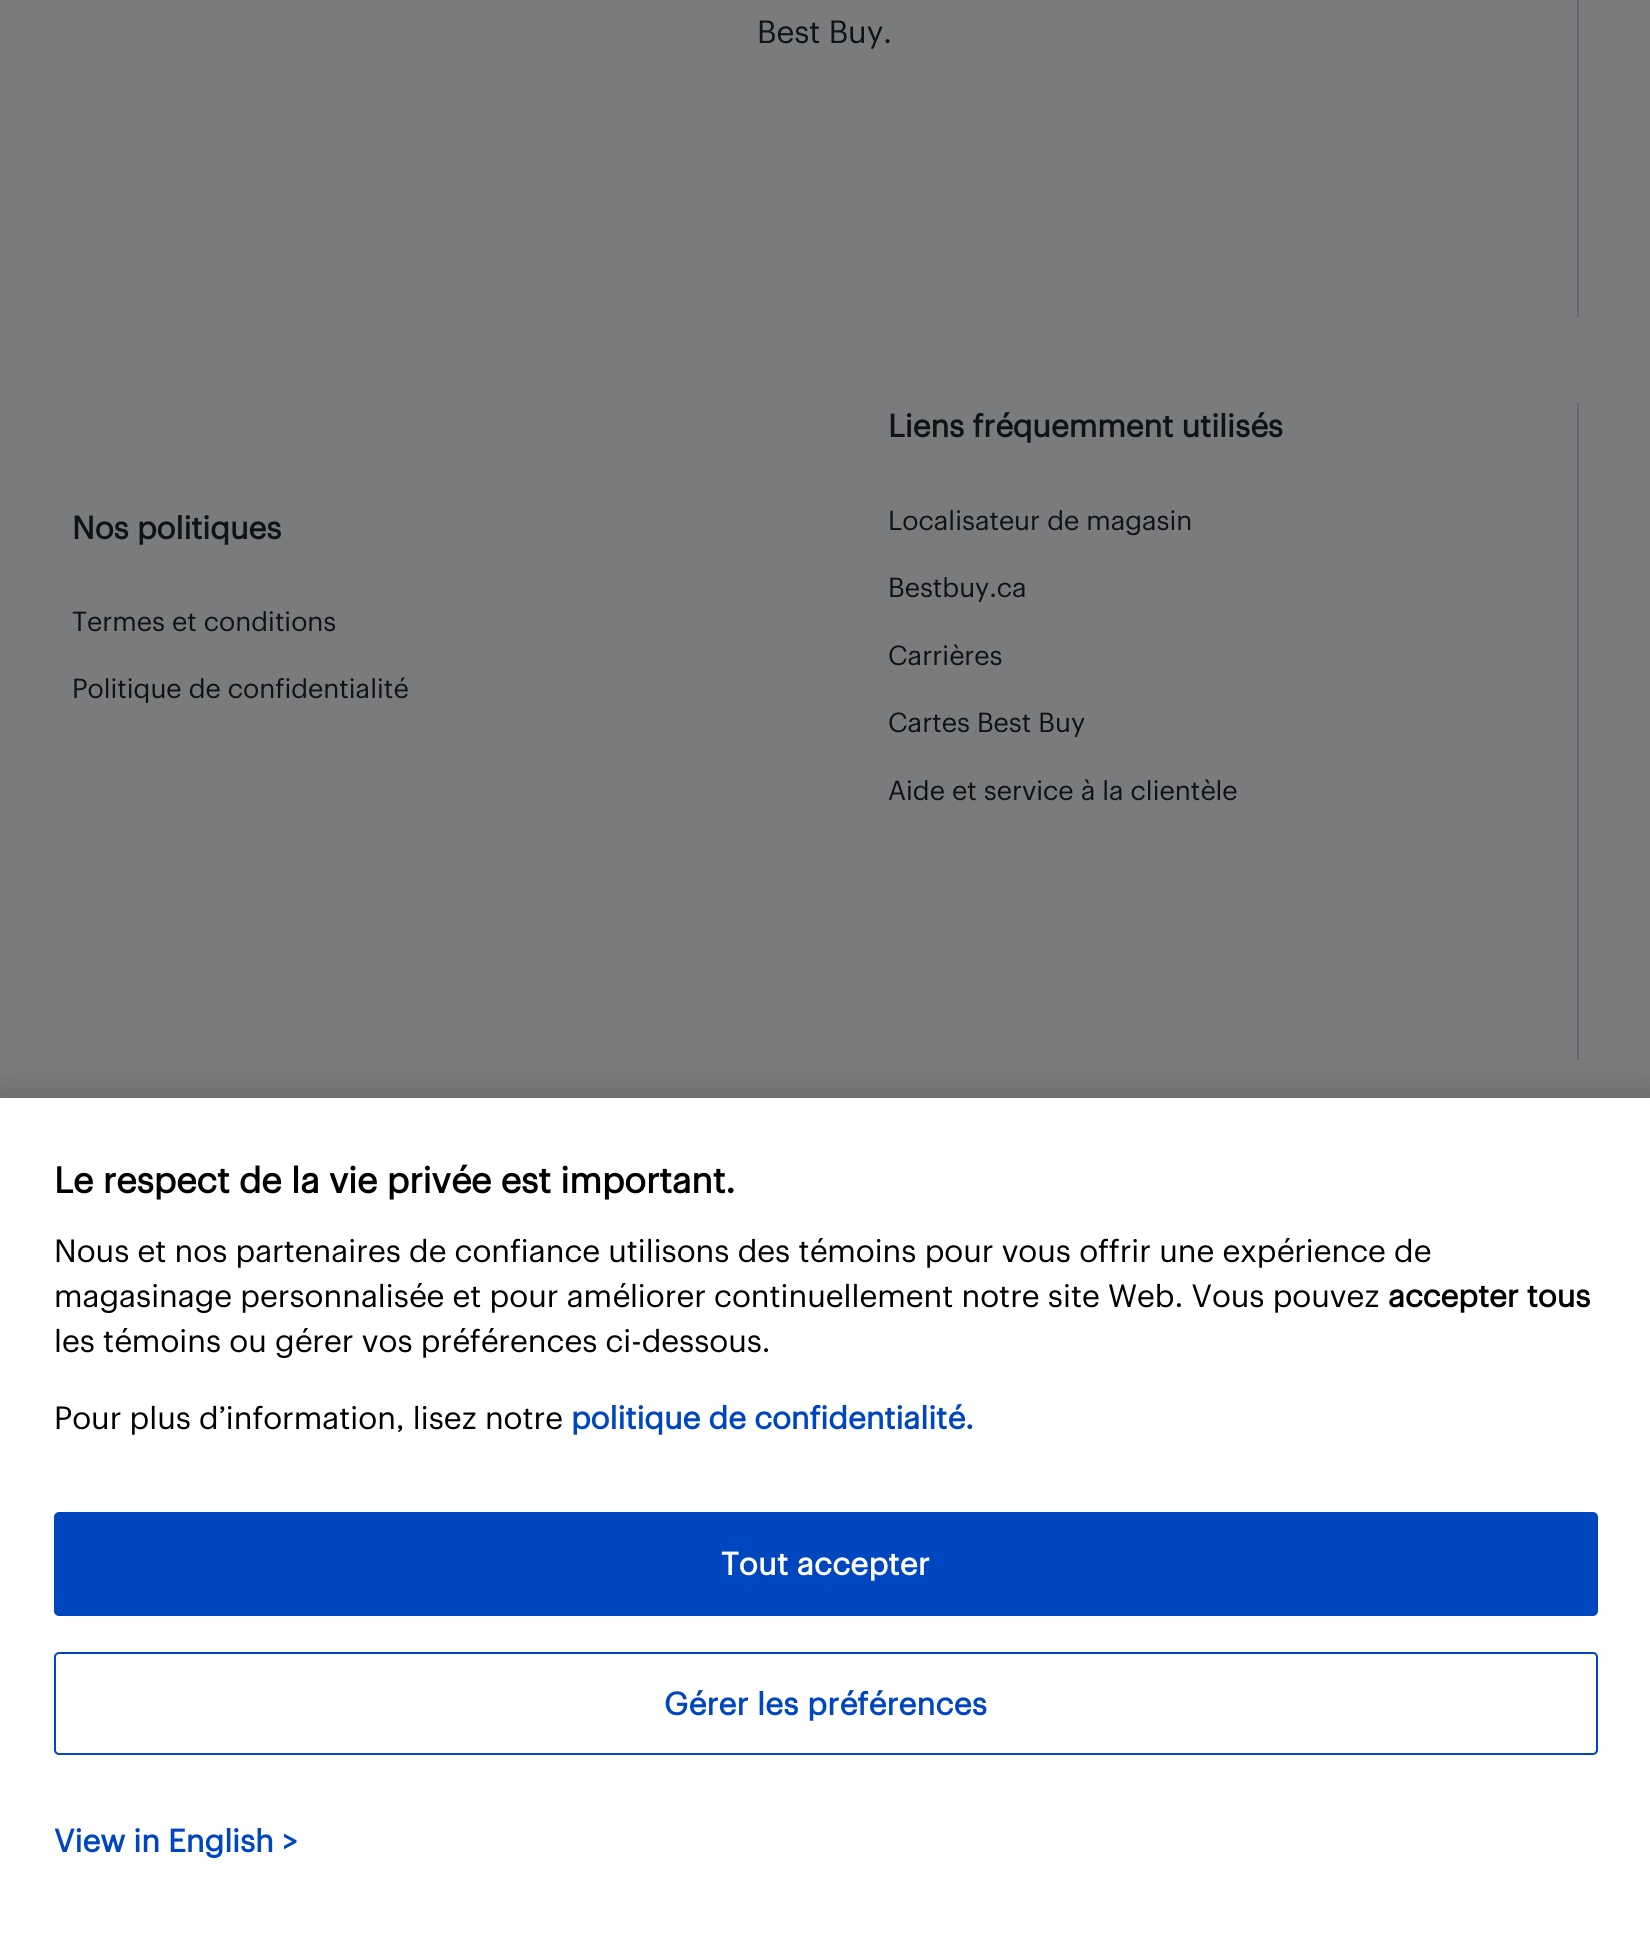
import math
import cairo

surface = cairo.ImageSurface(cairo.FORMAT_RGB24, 1650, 1933)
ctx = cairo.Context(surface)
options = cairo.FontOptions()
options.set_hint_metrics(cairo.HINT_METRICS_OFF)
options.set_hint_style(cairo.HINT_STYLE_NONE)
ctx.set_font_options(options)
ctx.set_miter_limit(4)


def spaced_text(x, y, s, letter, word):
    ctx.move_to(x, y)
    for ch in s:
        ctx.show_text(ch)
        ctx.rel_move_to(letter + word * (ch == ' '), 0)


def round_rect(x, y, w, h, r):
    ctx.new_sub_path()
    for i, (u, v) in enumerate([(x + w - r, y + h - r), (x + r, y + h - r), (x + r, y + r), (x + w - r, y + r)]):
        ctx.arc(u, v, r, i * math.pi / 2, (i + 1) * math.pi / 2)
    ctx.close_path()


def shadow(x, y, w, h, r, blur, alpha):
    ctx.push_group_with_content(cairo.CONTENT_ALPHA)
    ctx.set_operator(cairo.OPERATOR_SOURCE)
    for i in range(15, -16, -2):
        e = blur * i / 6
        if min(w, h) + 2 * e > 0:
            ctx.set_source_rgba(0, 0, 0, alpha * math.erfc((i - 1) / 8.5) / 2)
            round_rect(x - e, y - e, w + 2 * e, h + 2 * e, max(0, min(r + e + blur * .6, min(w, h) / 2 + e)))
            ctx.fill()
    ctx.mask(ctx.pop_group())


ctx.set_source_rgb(0.478, 0.482, 0.49)
ctx.paint()
ctx.set_source_rgb(0.388, 0.4, 0.42)
ctx.rectangle(1577, 0, 2, 317)
ctx.fill()
ctx.select_font_face("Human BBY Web")
ctx.set_font_size(31.5)
ctx.set_source_rgb(0.059, 0.075, 0.086)
ctx.move_to(757, 43)
ctx.show_text("Best Buy.")
ctx.set_source_rgb(0.388, 0.4, 0.42)
ctx.rectangle(1577, 403, 2, 657)
ctx.fill()
ctx.select_font_face("Human BBY Web", cairo.FONT_SLANT_NORMAL, cairo.FONT_WEIGHT_BOLD)
ctx.set_source_rgb(0.059, 0.075, 0.086)
ctx.move_to(72, 539)
ctx.show_text("Nos politiques")
ctx.select_font_face("Human BBY Web")
ctx.set_font_size(27)
ctx.move_to(72, 631)
ctx.show_text("Termes et conditions")
ctx.move_to(72, 698)
ctx.show_text("Politique de confidentialité")
ctx.select_font_face("Human BBY Web", cairo.FONT_SLANT_NORMAL, cairo.FONT_WEIGHT_BOLD)
ctx.set_font_size(31.5)
ctx.move_to(888, 437)
ctx.show_text("Liens fréquemment utilisés")
ctx.select_font_face("Human BBY Web")
ctx.set_font_size(27)
ctx.move_to(888, 530)
ctx.show_text("Localisateur de magasin")
ctx.move_to(888, 597)
ctx.show_text("Bestbuy.ca")
ctx.move_to(888, 665)
ctx.show_text("Carrières")
ctx.move_to(888, 732)
ctx.show_text("Cartes Best Buy")
ctx.move_to(888, 800)
ctx.show_text("Aide et service à la clientèle")
ctx.set_source_rgb(0, 0, 0)
shadow(0, 1098, 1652, 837, 0, 20, 0.2)
ctx.set_source_rgb(1, 1, 1)
ctx.rectangle(0, 1098, 1650, 835)
ctx.fill()
ctx.select_font_face("Human BBY Web", cairo.FONT_SLANT_NORMAL, cairo.FONT_WEIGHT_BOLD)
ctx.set_font_size(36)
ctx.set_source_rgb(0, 0, 0)
ctx.move_to(54, 1193)
ctx.show_text("Le respect de la vie privée est important.")
ctx.select_font_face("Human BBY Web")
ctx.set_font_size(31.5)
ctx.move_to(54, 1262)
ctx.show_text("Nous et nos partenaires de confiance utilisons des témoins pour vous offrir une expérience de")
ctx.move_to(54, 1307)
ctx.show_text("magasinage personnalisée et pour améliorer continuellement notre site Web. Vous pouvez")
ctx.select_font_face("Human BBY Web", cairo.FONT_SLANT_NORMAL, cairo.FONT_WEIGHT_BOLD)
ctx.move_to(1388, 1307)
ctx.show_text("accepter tous")
ctx.select_font_face("Human BBY Web")
ctx.move_to(54, 1352)
ctx.show_text("les témoins ou gérer vos préférences ci-dessous.")
ctx.move_to(54, 1429)
ctx.show_text("Pour plus d’information, lisez notre")
ctx.select_font_face("Human BBY Web", cairo.FONT_SLANT_NORMAL, cairo.FONT_WEIGHT_BOLD)
ctx.set_source_rgb(0, 0.275, 0.745)
ctx.move_to(571, 1429)
ctx.show_text("politique de confidentialité.")
ctx.move_to(54, 1852)
ctx.show_text("View in English >")
round_rect(55, 1513, 1542, 102, 4)
ctx.fill_preserve()
ctx.stroke()
ctx.set_source_rgb(1, 1, 1)
spaced_text(721, 1575, "Tout accepter", 0.3, 0)
round_rect(55, 1653, 1542, 101, 4)
ctx.set_source_rgb(0, 0.275, 0.745)
ctx.stroke()
spaced_text(664, 1715, "Gérer les préférences", 0.3, 0)
surface.write_to_png("page.png")
